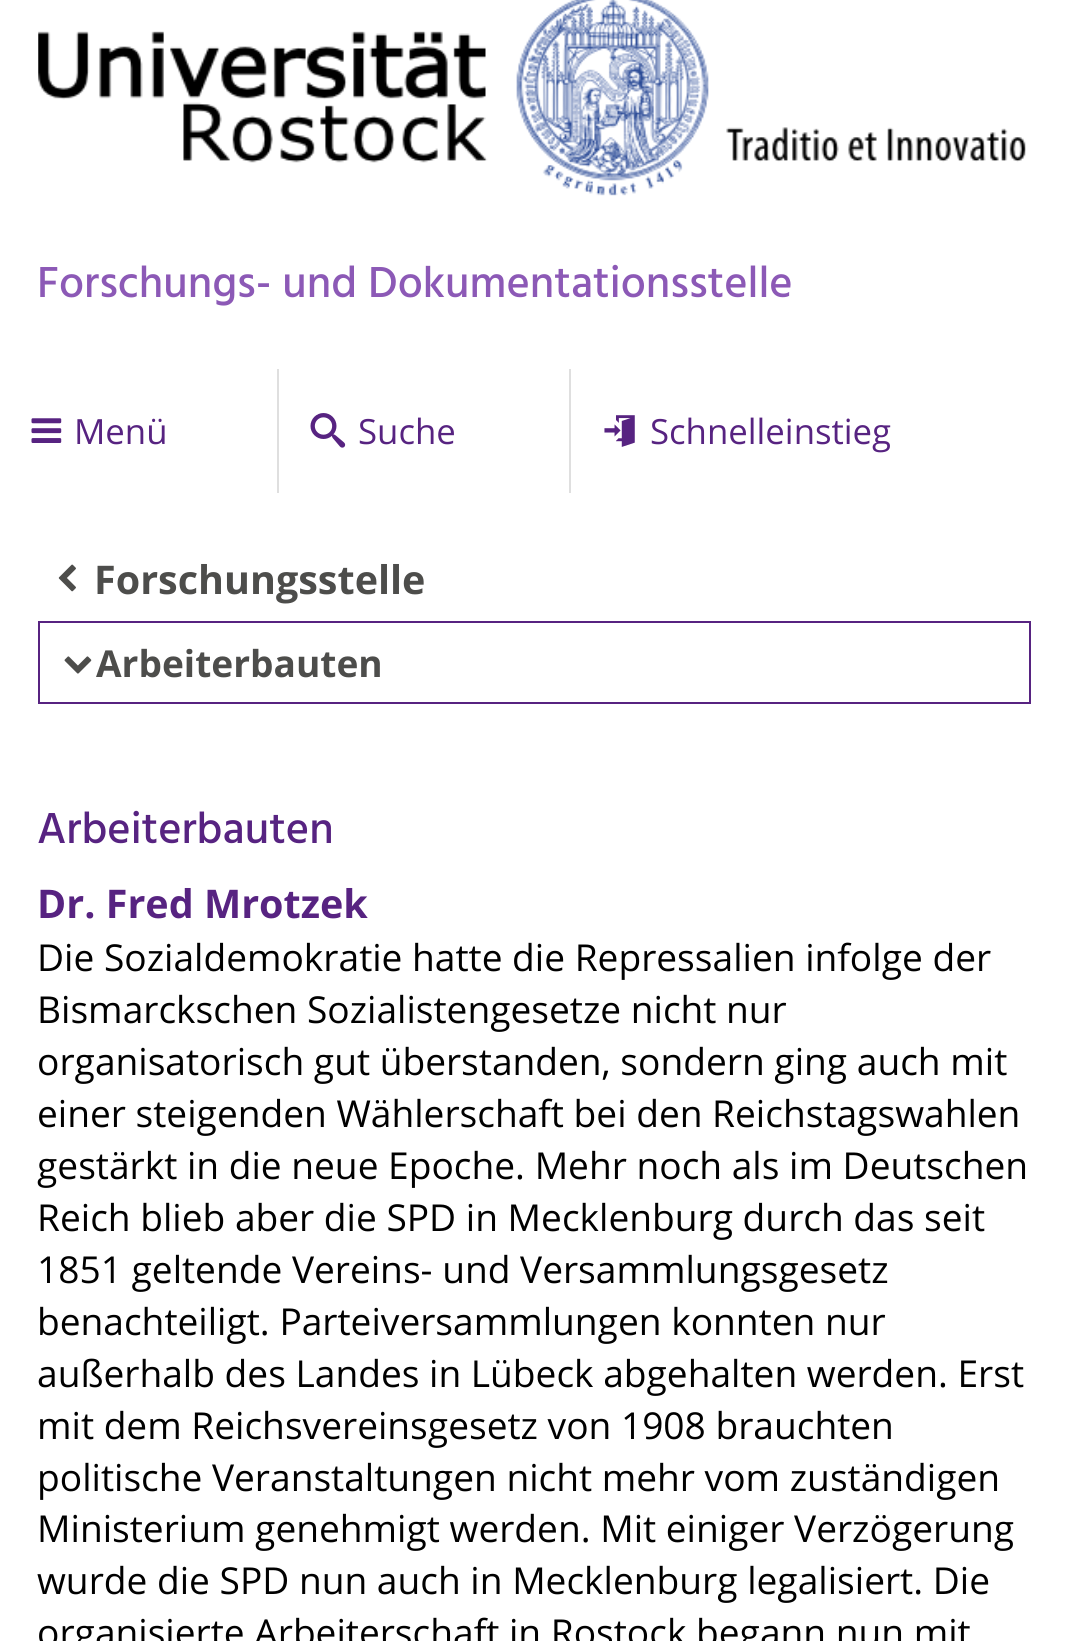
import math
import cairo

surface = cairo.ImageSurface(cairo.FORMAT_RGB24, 1066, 1641)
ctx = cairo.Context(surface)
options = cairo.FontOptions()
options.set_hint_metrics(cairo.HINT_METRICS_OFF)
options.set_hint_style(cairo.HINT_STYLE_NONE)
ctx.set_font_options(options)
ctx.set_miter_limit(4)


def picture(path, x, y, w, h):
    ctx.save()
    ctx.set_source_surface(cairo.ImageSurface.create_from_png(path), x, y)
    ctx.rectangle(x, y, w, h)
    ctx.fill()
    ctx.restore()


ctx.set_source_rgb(1, 1, 1)
ctx.paint()
picture("img1.png", 38, 0, 988, 196)
ctx.select_font_face("Hind Medium")
ctx.set_font_size(44.5)
ctx.set_source_rgb(0.549, 0.349, 0.714)
ctx.move_to(37, 297)
ctx.show_text("Forschungs- und Dokumentationsstelle")
picture("img2.png", 31, 418, 31, 25)
ctx.select_font_face("Open Sans")
ctx.set_font_size(34.75)
ctx.set_source_rgb(0.341, 0.137, 0.506)
ctx.move_to(74, 444)
ctx.show_text("Menü")
ctx.set_source_rgb(0.875, 0.875, 0.875)
ctx.rectangle(277, 369, 2, 124)
ctx.fill()
picture("img3.png", 310, 413, 36, 35)
ctx.set_source_rgb(0.341, 0.137, 0.506)
ctx.move_to(358, 444)
ctx.show_text("Suche")
ctx.set_source_rgb(0.875, 0.875, 0.875)
ctx.rectangle(569, 369, 2, 124)
ctx.fill()
picture("img4.png", 604, 415, 31, 32)
ctx.set_source_rgb(0.341, 0.137, 0.506)
ctx.move_to(650, 444)
ctx.show_text("Schnelleinstieg")
picture("img5.png", 58, 564, 18, 28)
ctx.select_font_face("Open Sans", cairo.FONT_SLANT_NORMAL, cairo.FONT_WEIGHT_BOLD)
ctx.set_font_size(39.5)
ctx.set_source_rgb(0.302, 0.302, 0.294)
ctx.move_to(94, 594)
ctx.show_text("Forschungsstelle")
ctx.rectangle(39, 622, 991, 81)
ctx.set_source_rgb(0.341, 0.137, 0.506)
ctx.stroke()
picture("img6.png", 64, 656, 28, 18)
ctx.set_font_size(37.1)
ctx.set_source_rgb(0.302, 0.302, 0.294)
ctx.move_to(96, 677)
ctx.show_text("Arbeiterbauten")
ctx.select_font_face("Hind Medium")
ctx.set_font_size(44.5)
ctx.set_source_rgb(0.341, 0.137, 0.506)
ctx.move_to(37, 843)
ctx.show_text("Arbeiterbauten")
ctx.select_font_face("Open Sans", cairo.FONT_SLANT_NORMAL, cairo.FONT_WEIGHT_BOLD)
ctx.set_font_size(39.5)
ctx.move_to(37, 918)
ctx.show_text("Dr. Fred Mrotzek")
ctx.select_font_face("Open Sans")
ctx.set_font_size(37.1)
ctx.set_source_rgb(0, 0, 0)
ctx.move_to(37, 971)
ctx.show_text("Die Sozialdemokratie hatte die Repressalien infolge der")
ctx.move_to(37, 1023)
ctx.show_text("Bismarckschen Sozialistengesetze nicht nur")
ctx.move_to(37, 1075)
ctx.show_text("organisatorisch gut überstanden, sondern ging auch mit")
ctx.move_to(37, 1127)
ctx.show_text("einer steigenden Wählerschaft bei den Reichstagswahlen")
ctx.move_to(37, 1179)
ctx.show_text("gestärkt in die neue Epoche. Mehr noch als im Deutschen")
ctx.move_to(37, 1231)
ctx.show_text("Reich blieb aber die SPD in Mecklenburg durch das seit")
ctx.move_to(37, 1283)
ctx.show_text("1851 geltende Vereins- und Versammlungsgesetz")
ctx.move_to(37, 1335)
ctx.show_text("benachteiligt. Parteiversammlungen konnten nur")
ctx.move_to(37, 1387)
ctx.show_text("außerhalb des Landes in Lübeck abgehalten werden. Erst")
ctx.move_to(37, 1439)
ctx.show_text("mit dem Reichsvereinsgesetz von 1908 brauchten")
ctx.move_to(37, 1491)
ctx.show_text("politische Veranstaltungen nicht mehr vom zuständigen")
ctx.move_to(37, 1542)
ctx.show_text("Ministerium genehmigt werden. Mit einiger Verzögerung")
ctx.move_to(37, 1594)
ctx.show_text("wurde die SPD nun auch in Mecklenburg legalisiert. Die")
ctx.move_to(37, 1646)
ctx.show_text("organisierte Arbeiterschaft in Rostock begann nun mit")
surface.write_to_png("page.png")
